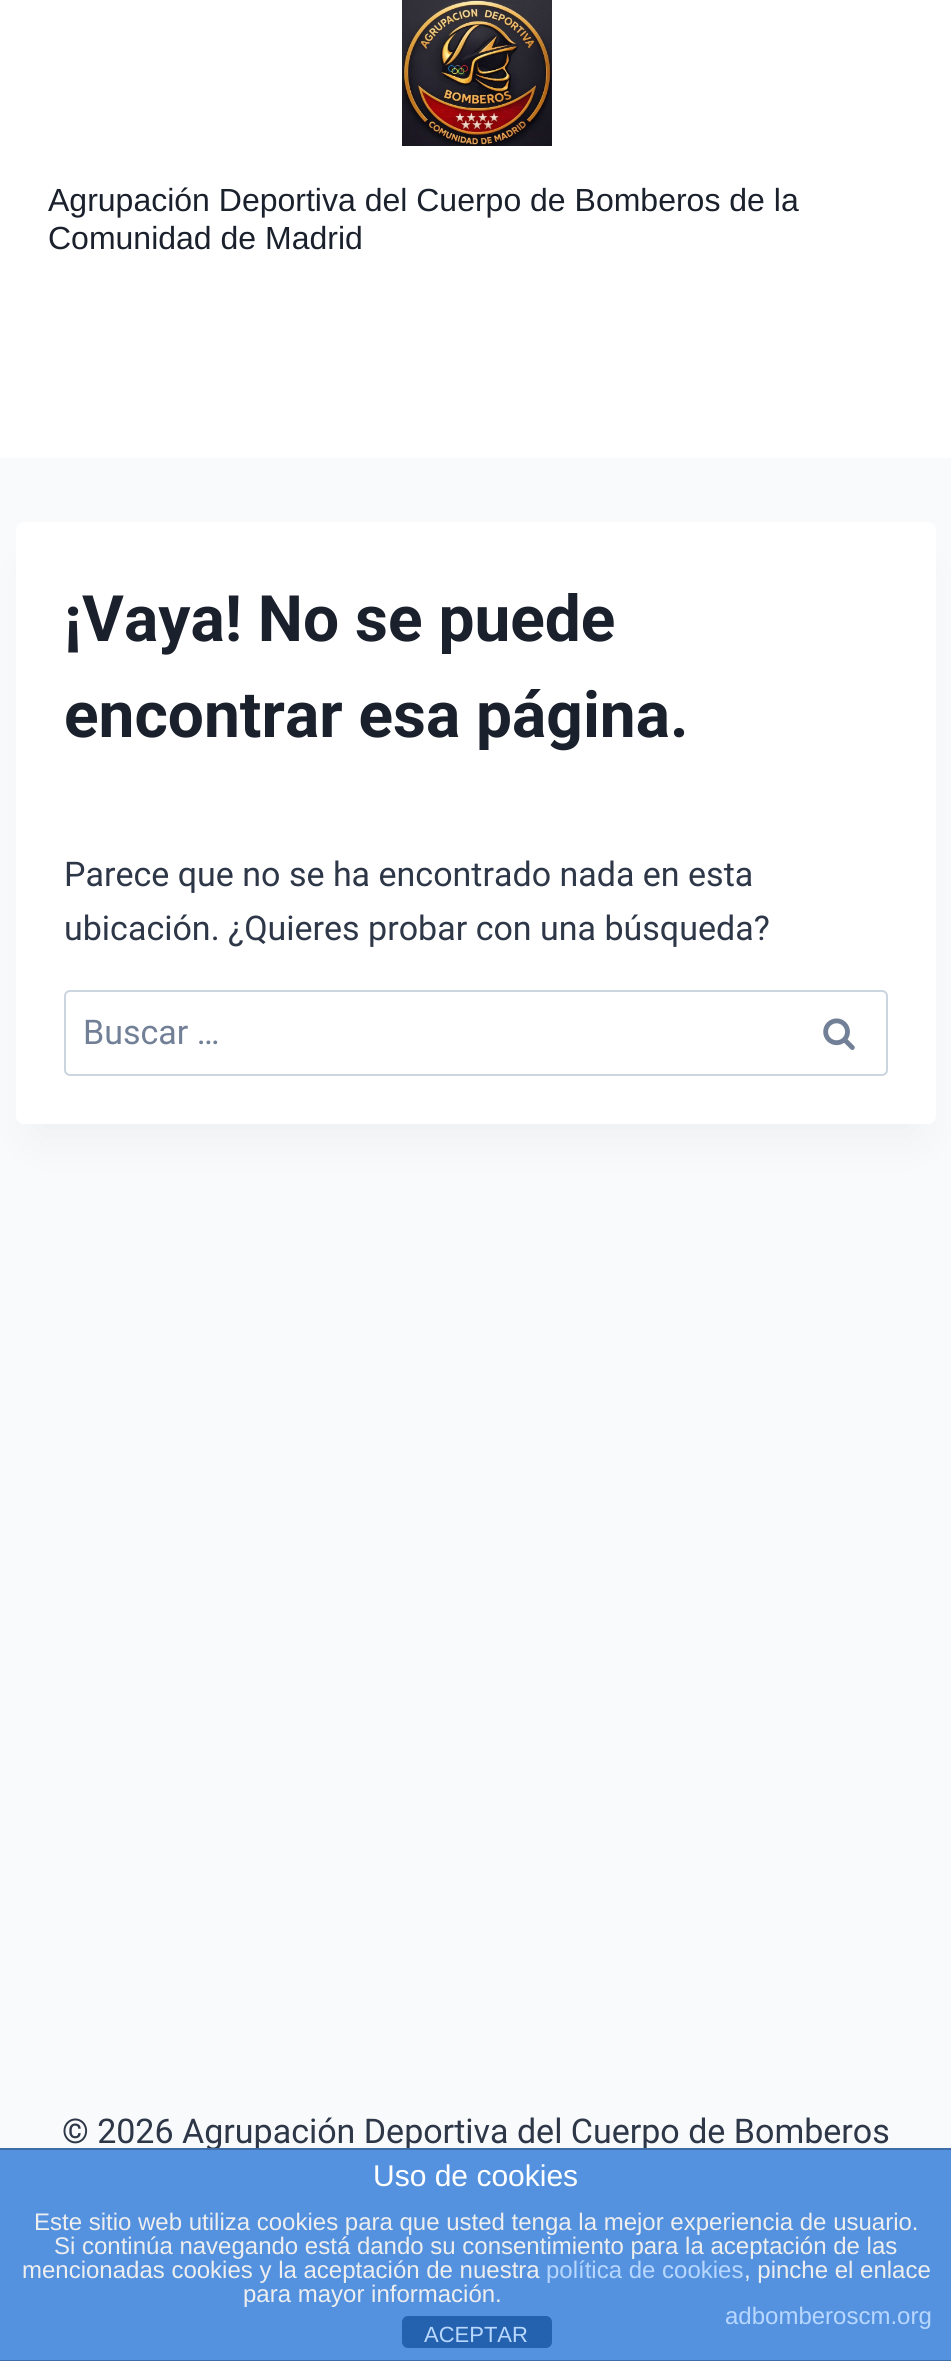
import math
import cairo

surface = cairo.ImageSurface(cairo.FORMAT_RGB24, 951, 2361)
ctx = cairo.Context(surface)
options = cairo.FontOptions()
options.set_hint_metrics(cairo.HINT_METRICS_OFF)
options.set_hint_style(cairo.HINT_STYLE_NONE)
ctx.set_font_options(options)
ctx.set_miter_limit(4)


def round_rect(x, y, w, h, r):
    ctx.new_sub_path()
    for i, (u, v) in enumerate([(x + w - r, y + h - r), (x + r, y + h - r), (x + r, y + r), (x + w - r, y + r)]):
        ctx.arc(u, v, r, i * math.pi / 2, (i + 1) * math.pi / 2)
    ctx.close_path()


def shadow(x, y, w, h, r, blur, alpha):
    ctx.push_group_with_content(cairo.CONTENT_ALPHA)
    ctx.set_operator(cairo.OPERATOR_SOURCE)
    for i in range(15, -16, -2):
        e = blur * i / 6
        if min(w, h) + 2 * e > 0:
            ctx.set_source_rgba(0, 0, 0, alpha * math.erfc((i - 1) / 8.5) / 2)
            round_rect(x - e, y - e, w + 2 * e, h + 2 * e, max(0, min(r + e + blur * .6, min(w, h) / 2 + e)))
            ctx.fill()
    ctx.mask(ctx.pop_group())


def picture(path, x, y, w, h):
    ctx.save()
    ctx.set_source_surface(cairo.ImageSurface.create_from_png(path), x, y)
    ctx.rectangle(x, y, w, h)
    ctx.fill()
    ctx.restore()


ctx.set_source_rgb(0.969, 0.98, 0.988)
ctx.paint()
ctx.set_source_rgb(1, 1, 1)
ctx.rectangle(0, 0, 951, 458)
ctx.fill()
picture("img1.png", 402, 0, 150, 146)
ctx.select_font_face("Liberation Sans")
ctx.set_font_size(32)
ctx.set_source_rgb(0.102, 0.125, 0.173)
ctx.move_to(48, 211)
ctx.show_text("Agrupación Deportiva del Cuerpo de Bomberos de la")
ctx.move_to(48, 249)
ctx.show_text("Comunidad de Madrid")
ctx.set_source_rgb(0, 0, 0)
shadow(36, 572, 880, 562, 0, 25, 0.05)
ctx.set_source_rgb(1, 1, 1)
round_rect(16, 522, 920, 602, 8)
ctx.fill()
ctx.select_font_face("Roboto", cairo.FONT_SLANT_NORMAL, cairo.FONT_WEIGHT_BOLD)
ctx.set_font_size(64)
ctx.set_source_rgb(0.102, 0.125, 0.173)
ctx.move_to(64, 641)
ctx.show_text("¡Vaya! No se puede")
ctx.move_to(64, 737)
ctx.show_text("encontrar esa página.")
ctx.select_font_face("Roboto")
ctx.set_font_size(34)
ctx.set_source_rgb(0.176, 0.216, 0.282)
ctx.move_to(64, 886)
ctx.show_text("Parece que no se ha encontrado nada en esta")
ctx.move_to(64, 940)
ctx.show_text("ubicación. ¿Quieres probar con una búsqueda?")
round_rect(65, 991, 822, 84, 5)
ctx.set_source_rgb(0.796, 0.835, 0.878)
ctx.stroke()
ctx.set_source_rgb(0.443, 0.502, 0.588)
ctx.move_to(83, 1044)
ctx.show_text("Buscar …")
picture("img2.png", 823, 1018, 32, 32)
ctx.set_source_rgb(0.176, 0.216, 0.282)
ctx.move_to(62, 2143)
ctx.show_text("© 2026 Agrupación Deportiva del Cuerpo de Bomberos")
ctx.set_source_rgb(0.329, 0.573, 0.878)
ctx.rectangle(0, 2150, 951, 210)
ctx.fill()
ctx.set_source_rgb(0.247, 0.427, 0.655)
ctx.rectangle(0, 2148, 951, 2)
ctx.fill()
ctx.rectangle(0, 2360, 951, 1)
ctx.fill()
ctx.select_font_face("Liberation Sans")
ctx.set_font_size(30)
ctx.set_source_rgb(1, 1, 1)
ctx.move_to(373, 2186)
ctx.show_text("Uso de cookies")
ctx.set_font_size(24)
ctx.set_source_rgb(0.933, 0.933, 0.933)
ctx.move_to(34, 2230)
ctx.show_text("Este sitio web utiliza cookies para que usted tenga la mejor experiencia de usuario.")
ctx.move_to(54, 2254)
ctx.show_text("Si continúa navegando está dando su consentimiento para la aceptación de las")
ctx.move_to(22, 2278)
ctx.show_text("mencionadas cookies y la aceptación de nuestra")
ctx.set_source_rgb(0.718, 0.843, 1)
ctx.move_to(546, 2278)
ctx.show_text("política de cookies")
ctx.set_source_rgb(0.933, 0.933, 0.933)
ctx.move_to(744, 2278)
ctx.show_text(", pinche el enlace")
ctx.move_to(243, 2302)
ctx.show_text("para mayor información.")
ctx.set_source_rgb(0.718, 0.843, 1)
ctx.move_to(725, 2324)
ctx.show_text("adbomberoscm.org")
ctx.set_source_rgb(0.141, 0.384, 0.69)
round_rect(402, 2316, 150, 32, 6)
ctx.fill()
ctx.set_font_size(22)
ctx.set_source_rgb(0.718, 0.843, 1)
ctx.move_to(424, 2342)
ctx.show_text("ACEPTAR")
surface.write_to_png("page.png")
